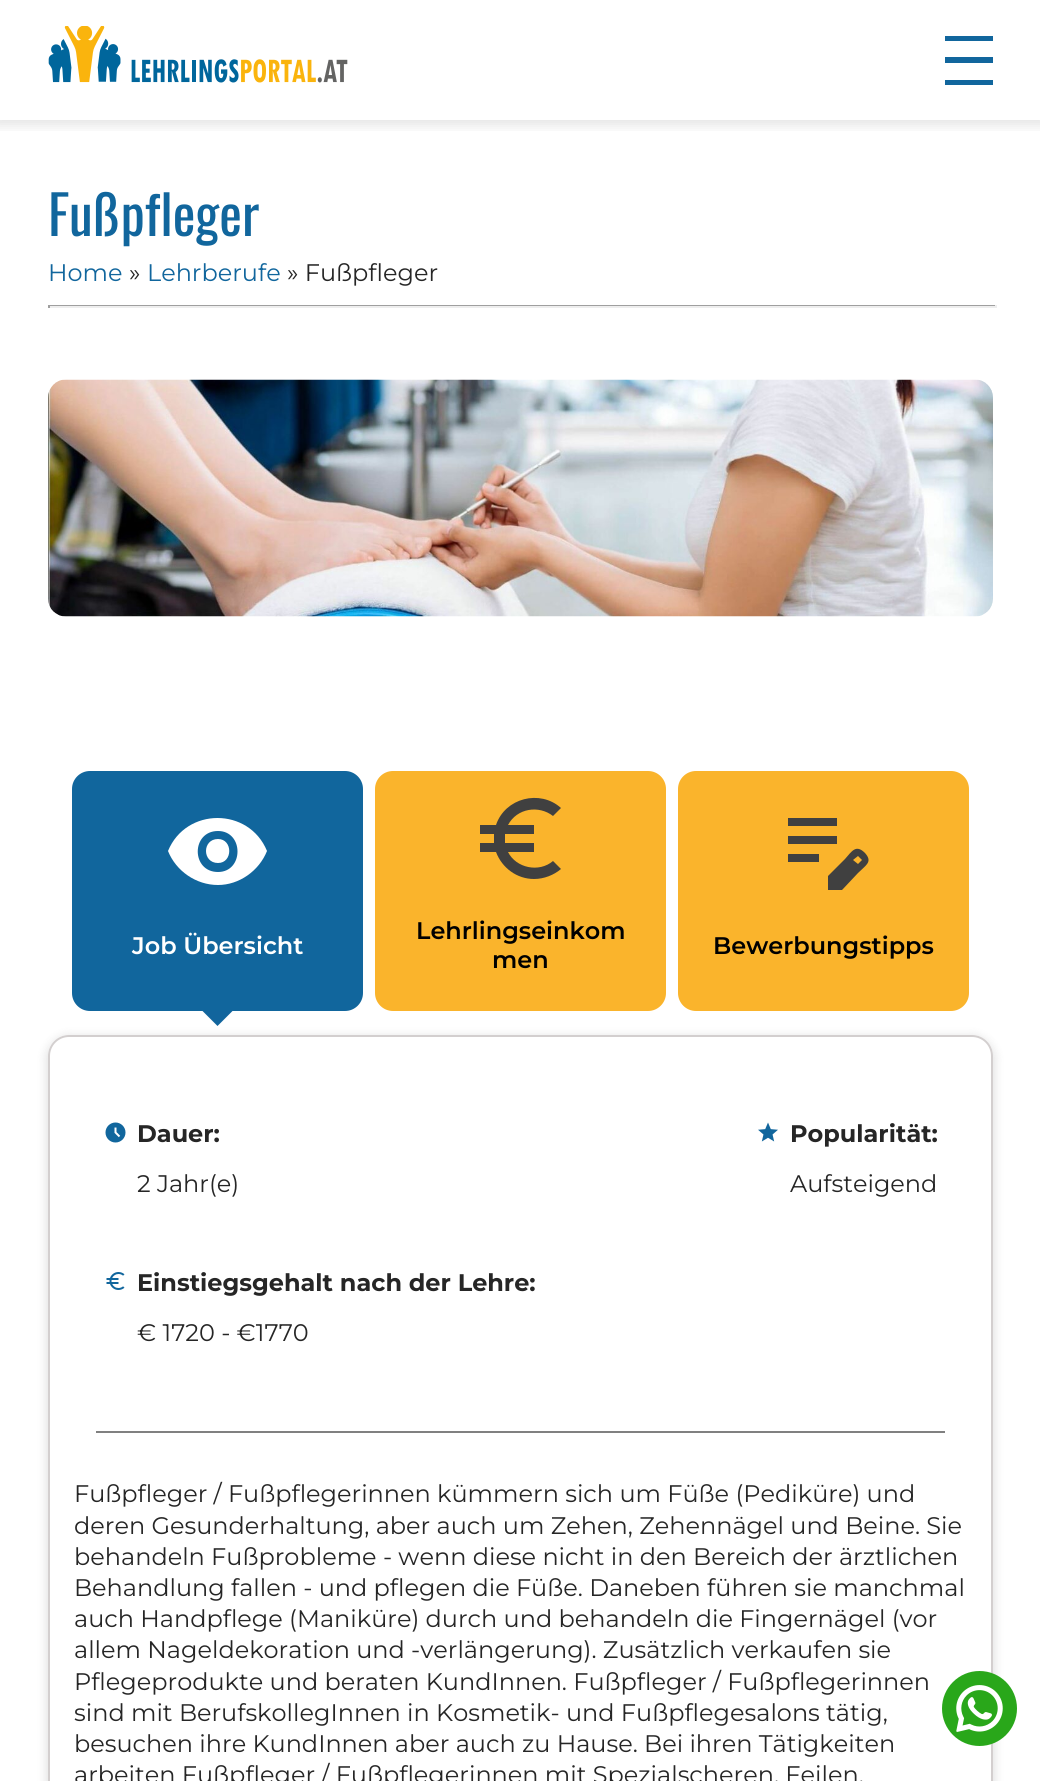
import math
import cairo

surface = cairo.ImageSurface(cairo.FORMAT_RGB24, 1040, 1781)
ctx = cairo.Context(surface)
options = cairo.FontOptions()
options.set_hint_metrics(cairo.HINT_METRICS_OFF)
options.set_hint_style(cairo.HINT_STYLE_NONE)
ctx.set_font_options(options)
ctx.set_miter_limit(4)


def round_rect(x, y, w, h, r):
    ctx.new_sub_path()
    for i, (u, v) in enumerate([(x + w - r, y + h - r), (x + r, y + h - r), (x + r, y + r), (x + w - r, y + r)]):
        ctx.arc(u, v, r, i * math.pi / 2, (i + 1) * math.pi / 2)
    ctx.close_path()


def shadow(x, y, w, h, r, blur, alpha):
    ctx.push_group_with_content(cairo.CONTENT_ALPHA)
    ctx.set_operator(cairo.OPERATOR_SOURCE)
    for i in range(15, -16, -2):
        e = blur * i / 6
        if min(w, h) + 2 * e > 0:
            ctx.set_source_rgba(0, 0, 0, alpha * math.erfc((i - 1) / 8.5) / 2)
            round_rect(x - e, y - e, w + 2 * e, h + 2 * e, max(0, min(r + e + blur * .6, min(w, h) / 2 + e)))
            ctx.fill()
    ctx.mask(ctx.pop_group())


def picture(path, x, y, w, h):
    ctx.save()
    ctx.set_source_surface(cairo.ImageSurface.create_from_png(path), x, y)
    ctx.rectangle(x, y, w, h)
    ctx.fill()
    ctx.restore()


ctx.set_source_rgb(1, 1, 1)
ctx.paint()
ctx.save()
ctx.rectangle(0, 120, 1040, 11)
ctx.clip()
ctx.set_source_rgb(0, 0, 0)
shadow(-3, 0, 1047, 126, 0, 6, 0.1)
ctx.restore()
picture("img1.png", 48, 26, 300, 57)
ctx.set_source_rgb(0.067, 0.4, 0.616)
ctx.rectangle(945, 36, 48, 5)
ctx.fill()
ctx.rectangle(945, 57, 48, 6)
ctx.fill()
ctx.rectangle(945, 80, 48, 5)
ctx.fill()
ctx.select_font_face("Oswald")
ctx.set_font_size(54)
ctx.move_to(48, 236)
ctx.show_text("Fußpfleger")
ctx.select_font_face("Montserrat")
ctx.set_font_size(24)
ctx.move_to(48, 281)
ctx.show_text("Home")
ctx.set_source_rgb(0.149, 0.149, 0.149)
ctx.move_to(129, 281)
ctx.show_text("»")
ctx.set_source_rgb(0.067, 0.4, 0.616)
ctx.move_to(147, 281)
ctx.show_text("Lehrberufe")
ctx.set_source_rgb(0.149, 0.149, 0.149)
ctx.move_to(287, 281)
ctx.show_text("» Fußpfleger")
ctx.set_source_rgb(0.624, 0.624, 0.624)
ctx.rectangle(48, 305, 948, 1)
ctx.fill()
ctx.set_source_rgb(0.933, 0.933, 0.933)
ctx.rectangle(995, 305, 2, 3)
ctx.fill()
ctx.rectangle(48, 306, 948, 2)
ctx.fill()
ctx.set_source_rgb(0.624, 0.624, 0.624)
ctx.rectangle(48, 305, 2, 3)
ctx.fill()
picture("img2.png", 48, 379, 945, 238)
ctx.set_source_rgb(0.067, 0.4, 0.616)
round_rect(72, 771, 291, 240, 18)
ctx.fill()
ctx.set_source_rgb(1, 1, 1)
ctx.new_path()
ctx.move_to(218, 872)
ctx.curve_to(244, 872, 244, 831, 218, 831)
ctx.curve_to(191, 831, 191, 872, 218, 872)
ctx.close_path()
ctx.move_to(218, 863)
ctx.curve_to(202, 863, 202, 839, 218, 839)
ctx.curve_to(233, 839, 233, 863, 218, 863)
ctx.close_path()
ctx.move_to(218, 885)
ctx.curve_to(196, 885, 176, 871, 168, 851)
ctx.curve_to(186, 807, 249, 807, 267, 851)
ctx.curve_to(259, 871, 239, 885, 218, 885)
ctx.close_path()
ctx.fill()
ctx.select_font_face("Montserrat SemiBold")
ctx.move_to(132, 954)
ctx.show_text("Job Übersicht")
ctx.set_source_rgb(0.071, 0.396, 0.616)
ctx.new_path()
ctx.move_to(202.5, 1011)
ctx.line_to(232.5, 1011)
ctx.line_to(217.5, 1026)
ctx.close_path()
ctx.fill()
ctx.set_source_rgb(0.98, 0.706, 0.173)
round_rect(375, 771, 291, 240, 18)
ctx.fill()
ctx.set_source_rgb(0.251, 0.251, 0.251)
ctx.new_path()
ctx.move_to(534, 879)
ctx.curve_to(517, 879, 502, 868, 496, 852)
ctx.line_to(480, 852)
ctx.line_to(480, 843)
ctx.line_to(494, 843)
ctx.line_to(494, 834)
ctx.line_to(480, 834)
ctx.line_to(480, 825)
ctx.line_to(496, 825)
ctx.curve_to(505, 798, 540, 789, 561, 808)
ctx.line_to(553, 816)
ctx.curve_to(539, 805, 517, 808, 508, 825)
ctx.line_to(534, 825)
ctx.line_to(534, 834)
ctx.line_to(505, 834)
ctx.curve_to(505, 837, 505, 840, 505, 843)
ctx.line_to(534, 843)
ctx.line_to(534, 852)
ctx.line_to(508, 852)
ctx.curve_to(516, 868, 539, 873, 553, 861)
ctx.line_to(561, 869)
ctx.curve_to(554, 875, 544, 879, 534, 879)
ctx.close_path()
ctx.fill()
ctx.set_source_rgb(0, 0, 0)
ctx.move_to(416, 939)
ctx.show_text("Lehrlingseinkom")
ctx.move_to(492, 968)
ctx.show_text("men")
ctx.set_source_rgb(0.98, 0.706, 0.173)
round_rect(678, 771, 291, 240, 18)
ctx.fill()
ctx.set_source_rgb(0.251, 0.251, 0.251)
ctx.new_path()
ctx.move_to(788, 862)
ctx.line_to(788, 854)
ctx.line_to(819, 854)
ctx.line_to(819, 862)
ctx.close_path()
ctx.move_to(788, 844)
ctx.line_to(788, 836)
ctx.line_to(837, 836)
ctx.line_to(837, 844)
ctx.close_path()
ctx.move_to(788, 826)
ctx.line_to(788, 818)
ctx.line_to(837, 818)
ctx.line_to(837, 826)
ctx.close_path()
ctx.move_to(828, 890)
ctx.line_to(828, 876)
ctx.line_to(845, 859)
ctx.curve_to(852, 851, 856, 844, 865, 853)
ctx.curve_to(873, 862, 866, 865, 858, 873)
ctx.line_to(842, 890)
ctx.close_path()
ctx.move_to(858, 864)
ctx.line_to(862, 860)
ctx.line_to(858, 856)
ctx.line_to(853, 860)
ctx.close_path()
ctx.fill()
ctx.set_source_rgb(0, 0, 0)
ctx.move_to(713, 954)
ctx.show_text("Bewerbungstipps")
ctx.save()
ctx.set_fill_rule(cairo.FILL_RULE_EVEN_ODD)
ctx.new_path()
ctx.move_to(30, 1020)
ctx.line_to(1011, 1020)
ctx.line_to(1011, 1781)
ctx.line_to(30, 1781)
ctx.close_path()
ctx.move_to(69, 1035)
ctx.line_to(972, 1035)
ctx.curve_to(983.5, 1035, 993, 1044.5, 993, 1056)
ctx.line_to(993, 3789)
ctx.curve_to(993, 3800.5, 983.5, 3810, 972, 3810)
ctx.line_to(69, 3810)
ctx.curve_to(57.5, 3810, 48, 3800.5, 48, 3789)
ctx.line_to(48, 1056)
ctx.curve_to(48, 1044.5, 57.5, 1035, 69, 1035)
ctx.close_path()
ctx.clip()
ctx.set_source_rgb(0, 0, 0)
shadow(45, 1035, 951, 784, 24, 4.5, 0.1)
ctx.restore()
round_rect(49, 1036, 943, 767, 20)
ctx.set_source_rgb(0.827, 0.812, 0.812)
ctx.stroke()
picture("img3.png", 105, 1122, 21, 21)
ctx.select_font_face("Montserrat", cairo.FONT_SLANT_NORMAL, cairo.FONT_WEIGHT_BOLD)
ctx.set_source_rgb(0.149, 0.149, 0.149)
ctx.move_to(137, 1142)
ctx.show_text("Dauer:")
ctx.select_font_face("Montserrat")
ctx.move_to(137, 1192)
ctx.show_text("2 Jahr(e)")
picture("img4.png", 758, 1122, 20, 20)
ctx.select_font_face("Montserrat", cairo.FONT_SLANT_NORMAL, cairo.FONT_WEIGHT_BOLD)
ctx.move_to(790, 1142)
ctx.show_text("Popularität:")
ctx.select_font_face("Montserrat")
ctx.move_to(790, 1192)
ctx.show_text("Aufsteigend")
picture("img5.png", 106, 1272, 19, 18)
ctx.select_font_face("Montserrat", cairo.FONT_SLANT_NORMAL, cairo.FONT_WEIGHT_BOLD)
ctx.move_to(137, 1291)
ctx.show_text("Einstiegsgehalt nach der Lehre:")
ctx.select_font_face("Montserrat")
ctx.move_to(137, 1341)
ctx.show_text("€ 1720 - €1770")
ctx.set_source_rgb(0.502, 0.502, 0.502)
ctx.rectangle(96, 1431, 849, 2)
ctx.fill()
ctx.set_source_rgb(0.149, 0.149, 0.149)
ctx.move_to(74, 1502)
ctx.show_text("Fußpfleger / Fußpflegerinnen kümmern sich um Füße (Pediküre) und")
ctx.move_to(74, 1534)
ctx.show_text("deren Gesunderhaltung, aber auch um Zehen, Zehennägel und Beine. Sie")
ctx.move_to(74, 1565)
ctx.show_text("behandeln Fußprobleme - wenn diese nicht in den Bereich der ärztlichen")
ctx.move_to(74, 1596)
ctx.show_text("Behandlung fallen - und pflegen die Füße. Daneben führen sie manchmal")
ctx.move_to(74, 1627)
ctx.show_text("auch Handpflege (Maniküre) durch und behandeln die Fingernägel (vor")
ctx.move_to(74, 1658)
ctx.show_text("allem Nageldekoration und -verlängerung). Zusätzlich verkaufen sie")
ctx.move_to(74, 1690)
ctx.show_text("Pflegeprodukte und beraten KundInnen. Fußpfleger / Fußpflegerinnen")
ctx.move_to(74, 1721)
ctx.show_text("sind mit BerufskollegInnen in Kosmetik- und Fußpflegesalons tätig,")
ctx.move_to(74, 1752)
ctx.show_text("besuchen ihre KundInnen aber auch zu Hause. Bei ihren Tätigkeiten")
ctx.move_to(74, 1783)
ctx.show_text("arbeiten Fußpfleger / Fußpflegerinnen mit Spezialscheren, Feilen,")
picture("img6.png", 942, 1671, 75, 75)
surface.write_to_png("page.png")
